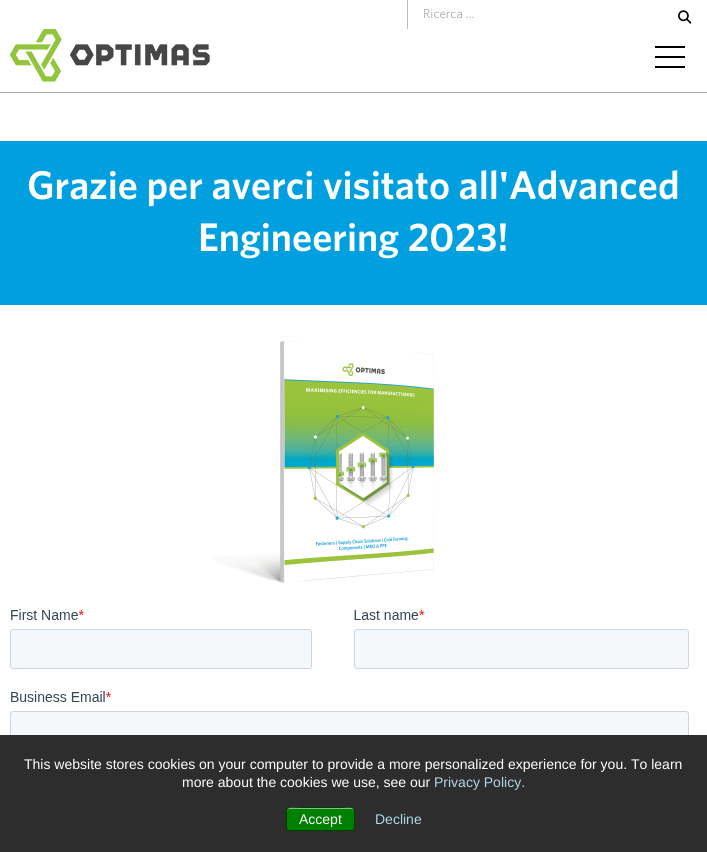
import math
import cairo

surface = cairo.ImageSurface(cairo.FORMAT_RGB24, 707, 852)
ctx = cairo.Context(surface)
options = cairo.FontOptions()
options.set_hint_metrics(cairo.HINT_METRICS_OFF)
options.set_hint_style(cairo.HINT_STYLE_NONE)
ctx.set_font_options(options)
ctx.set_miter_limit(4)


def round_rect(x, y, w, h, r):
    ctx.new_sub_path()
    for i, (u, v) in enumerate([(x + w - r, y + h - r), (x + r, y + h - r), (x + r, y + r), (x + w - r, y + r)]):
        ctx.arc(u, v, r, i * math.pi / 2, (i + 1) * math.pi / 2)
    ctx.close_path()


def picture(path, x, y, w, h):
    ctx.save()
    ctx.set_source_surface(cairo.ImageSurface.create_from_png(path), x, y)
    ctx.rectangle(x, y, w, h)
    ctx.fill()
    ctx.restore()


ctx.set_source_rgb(1, 1, 1)
ctx.paint()
ctx.set_source_rgb(0.663, 0.667, 0.675)
ctx.rectangle(0, 92, 707, 1)
ctx.fill()
ctx.set_source_rgb(0.729, 0.729, 0.737)
ctx.rectangle(407, 0, 1, 29)
ctx.fill()
ctx.select_font_face("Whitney")
ctx.set_font_size(13)
ctx.set_source_rgb(0.667, 0.663, 0.663)
ctx.move_to(423, 18)
ctx.show_text("Ricerca ...")
picture("img1.png", 678, 10, 14, 14)
picture("img2.png", 10, 29, 200, 53)
ctx.set_source_rgb(0, 0, 0)
ctx.rectangle(655, 56, 30, 2)
ctx.fill()
ctx.rectangle(655, 46, 30, 2)
ctx.fill()
ctx.rectangle(655, 66, 30, 2)
ctx.fill()
ctx.set_source_rgb(0, 0.627, 0.878)
ctx.rectangle(0, 141, 707, 164)
ctx.fill()
ctx.select_font_face("Whitney SemiBold")
ctx.set_font_size(40)
ctx.set_source_rgb(1, 1, 1)
ctx.move_to(27, 199)
ctx.show_text("Grazie per averci visitato all'Advanced")
ctx.move_to(198, 251)
ctx.show_text("Engineering 2023!")
picture("img3.png", 212, 340, 222, 243)
picture("img4.png", 10, 609, 679, 126)
ctx.set_source_rgb(0.176, 0.176, 0.176)
ctx.rectangle(0, 735, 707, 117)
ctx.fill()
ctx.select_font_face("Liberation Sans")
ctx.set_font_size(14)
ctx.set_source_rgb(1, 1, 1)
ctx.move_to(24, 769)
ctx.show_text("This website stores cookies on your computer to provide a more personalized experience for you. To learn")
ctx.move_to(182, 787)
ctx.show_text("more about the cookies we use, see our")
ctx.set_source_rgb(0.678, 0.847, 0.902)
ctx.move_to(434, 787)
ctx.show_text("Privacy Policy.")
ctx.set_source_rgb(0, 0.502, 0)
round_rect(286, 807, 69, 24, 4)
ctx.fill()
ctx.set_source_rgb(0.502, 0.753, 0.502)
ctx.new_path()
ctx.move_to(290, 809)
ctx.line_to(351, 809)
ctx.curve_to(353, 809, 354, 810, 354, 812)
ctx.curve_to(354, 805, 345, 808, 341, 808)
ctx.line_to(300, 808)
ctx.curve_to(296, 808, 287, 805, 287, 812)
ctx.curve_to(287, 810, 288, 809, 290, 809)
ctx.close_path()
ctx.fill()
round_rect(286.5, 807.5, 68, 23, 3.5)
ctx.set_source_rgba(0, 0, 0, 0.5)
ctx.set_line_width(1)
ctx.stroke()
ctx.set_source_rgb(1, 1, 1)
ctx.move_to(299, 824)
ctx.show_text("Accept")
ctx.set_source_rgb(0.678, 0.847, 0.902)
ctx.move_to(375, 824)
ctx.show_text("Decline")
surface.write_to_png("page.png")
